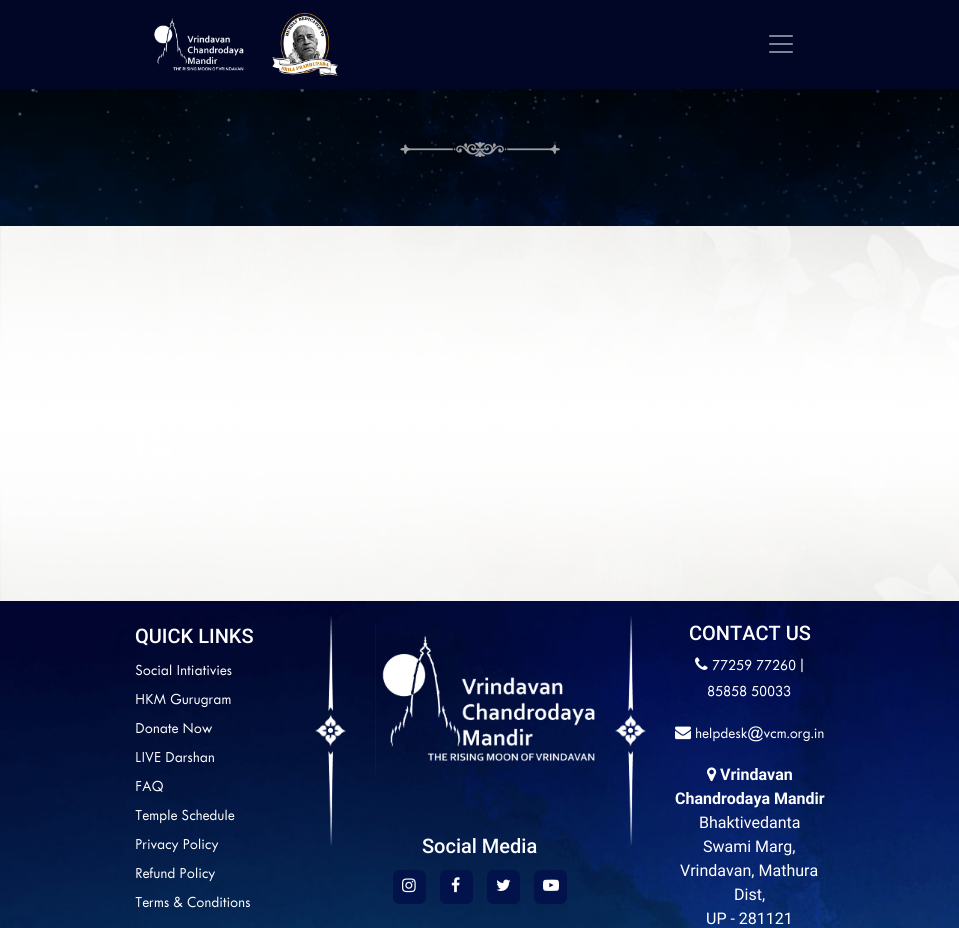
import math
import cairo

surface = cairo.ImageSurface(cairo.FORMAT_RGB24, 959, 928)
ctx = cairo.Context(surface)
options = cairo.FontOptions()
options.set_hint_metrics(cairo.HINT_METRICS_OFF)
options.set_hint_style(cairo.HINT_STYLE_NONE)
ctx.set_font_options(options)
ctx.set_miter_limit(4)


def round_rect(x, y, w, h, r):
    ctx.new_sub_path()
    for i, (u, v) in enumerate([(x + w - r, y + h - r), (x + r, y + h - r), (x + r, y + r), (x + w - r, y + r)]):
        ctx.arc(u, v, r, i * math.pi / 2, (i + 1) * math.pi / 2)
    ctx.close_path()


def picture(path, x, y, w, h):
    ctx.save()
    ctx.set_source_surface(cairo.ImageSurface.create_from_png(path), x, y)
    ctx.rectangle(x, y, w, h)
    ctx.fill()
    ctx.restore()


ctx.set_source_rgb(0.004, 0.027, 0.153)
ctx.paint()
picture("img1.png", 154, 18, 90, 53)
picture("img2.png", 272, 13, 66, 63)
picture("img3.png", 769, 35, 24, 18)
picture("img4.png", 0, 89, 959, 137)
picture("img5.png", 400, 142, 160, 15)
picture("img6.png", 0, 226, 959, 375)
picture("img7.png", 0, 601, 959, 327)
ctx.select_font_face("Roboto Medium")
ctx.set_font_size(20)
ctx.set_source_rgb(1, 1, 1)
ctx.move_to(135, 643)
ctx.show_text("QUICK LINKS")
ctx.select_font_face("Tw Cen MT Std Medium")
ctx.set_font_size(16)
ctx.move_to(135, 675)
ctx.show_text("Social Intiativies")
ctx.move_to(135, 704)
ctx.show_text("HKM Gurugram")
ctx.move_to(135, 733)
ctx.show_text("Donate Now")
ctx.move_to(135, 762)
ctx.show_text("LIVE Darshan")
ctx.move_to(135, 791)
ctx.show_text("FAQ")
ctx.move_to(135, 820)
ctx.show_text("Temple Schedule")
ctx.move_to(135, 849)
ctx.show_text("Privacy Policy")
ctx.move_to(135, 878)
ctx.show_text("Refund Policy")
ctx.move_to(135, 907)
ctx.show_text("Terms & Conditions")
picture("img8.png", 315, 616, 31, 230)
picture("img9.png", 375, 624, 220, 150)
ctx.select_font_face("Roboto Medium")
ctx.set_font_size(20)
ctx.move_to(422, 853)
ctx.show_text("Social Media")
ctx.set_source_rgb(0.008, 0.078, 0.298)
round_rect(393, 870, 33, 34, 6)
ctx.fill()
picture("img10.png", 402, 878, 14, 15)
round_rect(440, 870, 33, 34, 6)
ctx.fill()
picture("img11.png", 451, 877, 9, 16)
round_rect(487, 870, 33, 34, 6)
ctx.fill()
picture("img12.png", 496, 879, 15, 12)
round_rect(534, 870, 33, 34, 6)
ctx.fill()
picture("img13.png", 543, 879, 16, 12)
picture("img14.png", 615, 616, 31, 230)
ctx.set_source_rgb(1, 1, 1)
ctx.move_to(689, 640)
ctx.show_text("CONTACT US")
picture("img15.png", 695, 657, 13, 13)
ctx.select_font_face("Tw Cen MT Std Medium")
ctx.set_font_size(16)
ctx.move_to(712, 670)
ctx.show_text("77259 77260")
ctx.select_font_face("Roboto")
ctx.move_to(800, 670)
ctx.show_text("|")
ctx.select_font_face("Tw Cen MT Std Medium")
ctx.move_to(707, 696)
ctx.show_text("85858 50033")
picture("img16.png", 675, 726, 16, 14)
ctx.move_to(695, 738)
ctx.show_text("helpdesk@vcm.org.in")
picture("img17.png", 707, 767, 10, 15)
ctx.select_font_face("Roboto", cairo.FONT_SLANT_NORMAL, cairo.FONT_WEIGHT_BOLD)
ctx.move_to(720, 780)
ctx.show_text("Vrindavan")
ctx.move_to(675, 804)
ctx.show_text("Chandrodaya Mandir")
ctx.select_font_face("Roboto")
ctx.move_to(699, 828)
ctx.show_text("Bhaktivedanta")
ctx.move_to(703, 852)
ctx.show_text("Swami Marg,")
ctx.move_to(680, 876)
ctx.show_text("Vrindavan, Mathura")
ctx.move_to(734, 900)
ctx.show_text("Dist,")
ctx.move_to(706, 924)
ctx.show_text("UP - 281121")
surface.write_to_png("page.png")
